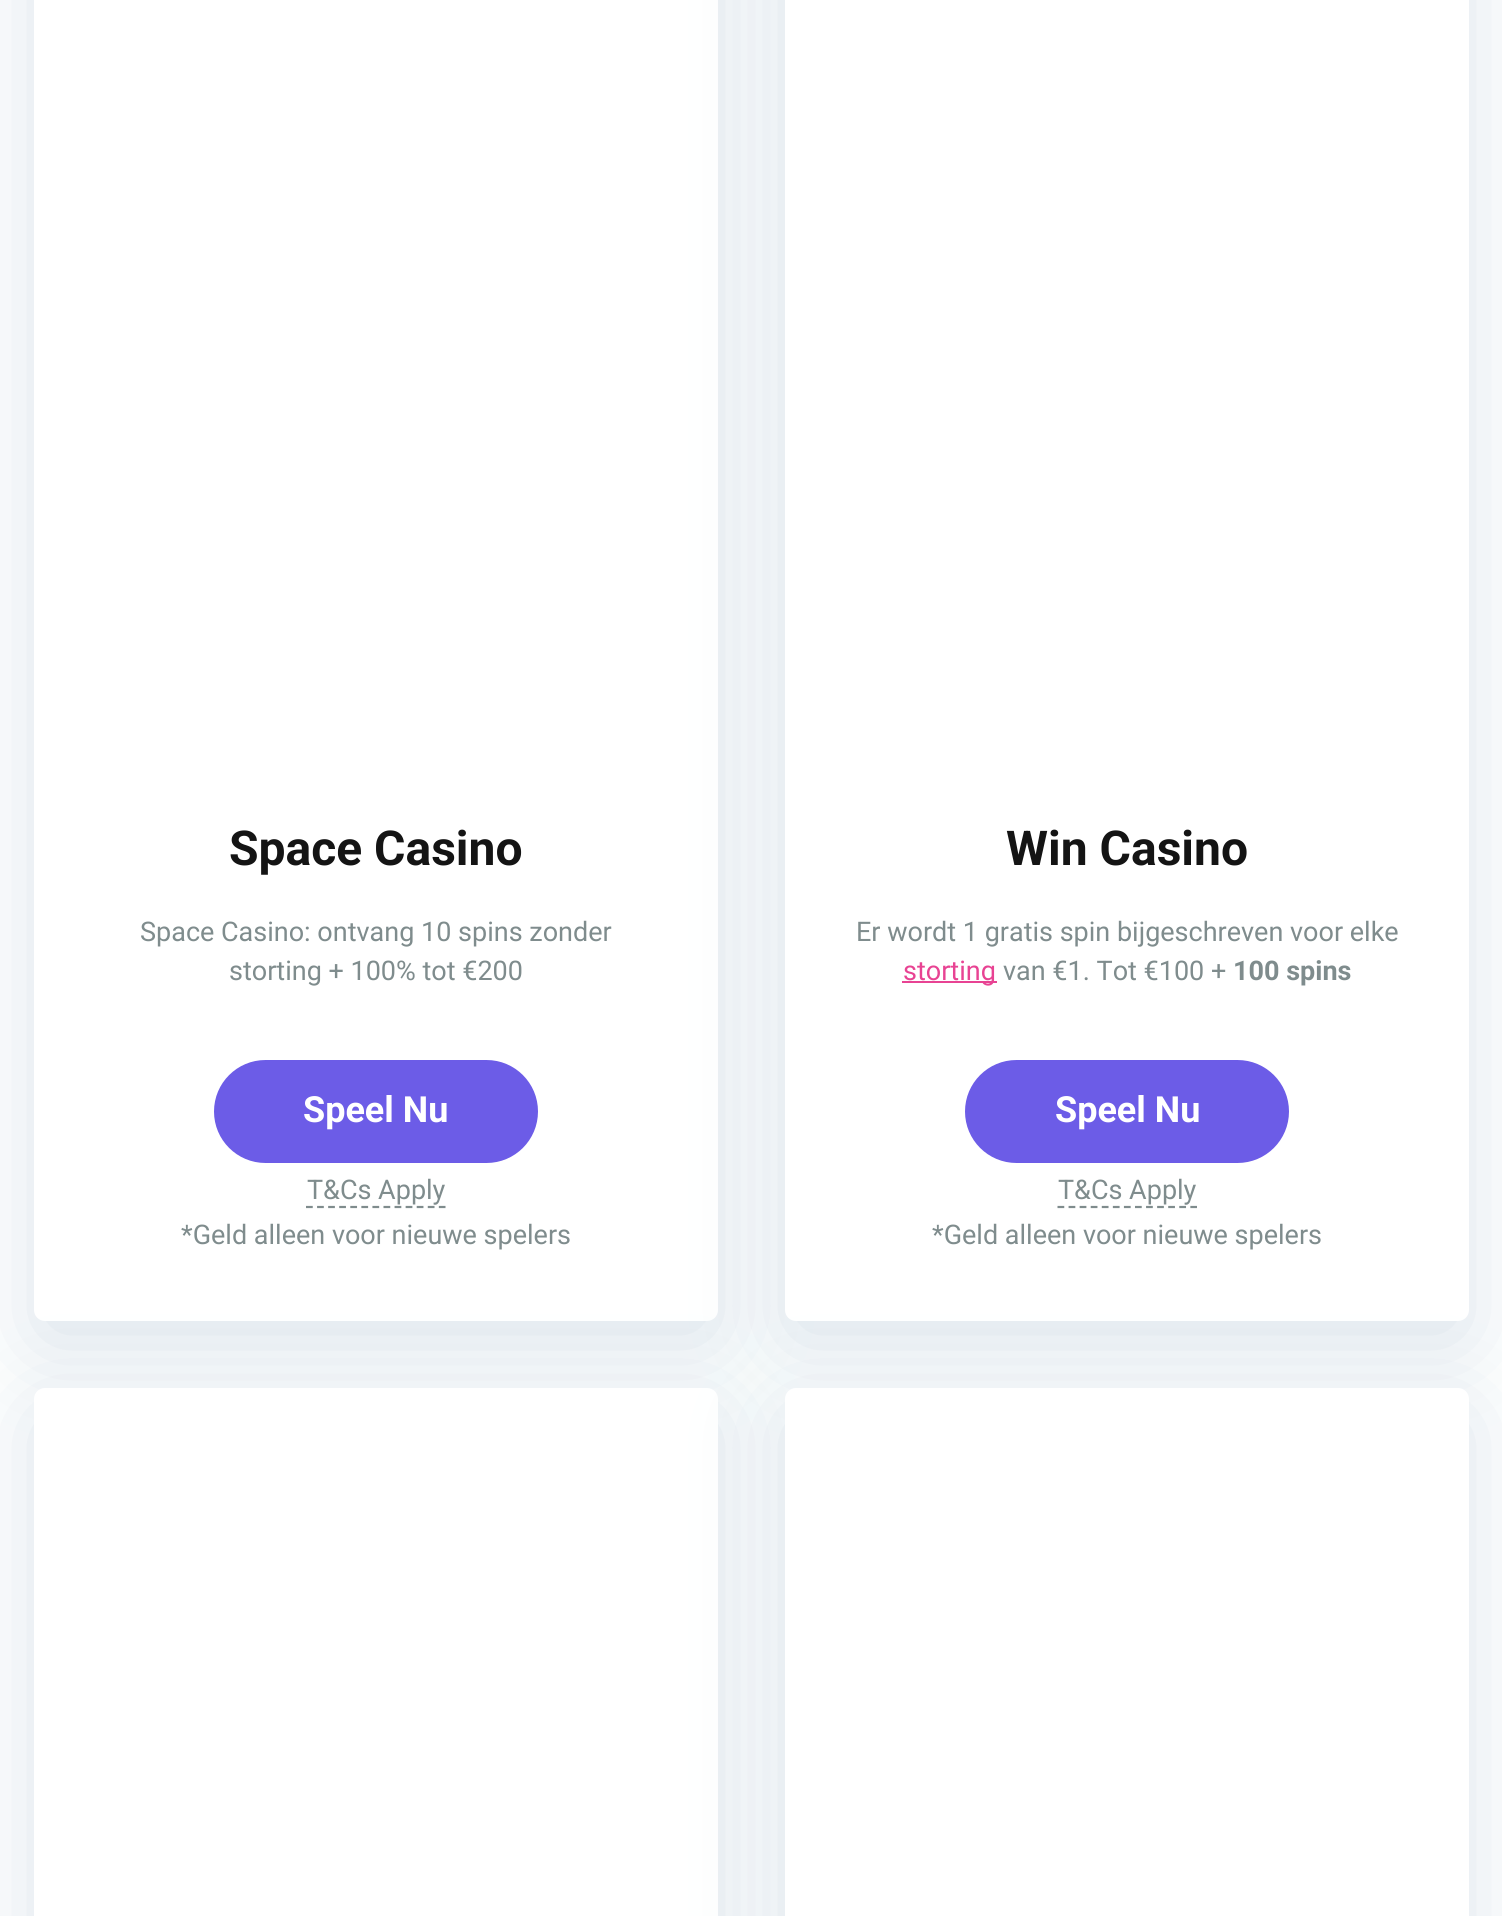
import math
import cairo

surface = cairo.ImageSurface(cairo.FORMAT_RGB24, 1502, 1916)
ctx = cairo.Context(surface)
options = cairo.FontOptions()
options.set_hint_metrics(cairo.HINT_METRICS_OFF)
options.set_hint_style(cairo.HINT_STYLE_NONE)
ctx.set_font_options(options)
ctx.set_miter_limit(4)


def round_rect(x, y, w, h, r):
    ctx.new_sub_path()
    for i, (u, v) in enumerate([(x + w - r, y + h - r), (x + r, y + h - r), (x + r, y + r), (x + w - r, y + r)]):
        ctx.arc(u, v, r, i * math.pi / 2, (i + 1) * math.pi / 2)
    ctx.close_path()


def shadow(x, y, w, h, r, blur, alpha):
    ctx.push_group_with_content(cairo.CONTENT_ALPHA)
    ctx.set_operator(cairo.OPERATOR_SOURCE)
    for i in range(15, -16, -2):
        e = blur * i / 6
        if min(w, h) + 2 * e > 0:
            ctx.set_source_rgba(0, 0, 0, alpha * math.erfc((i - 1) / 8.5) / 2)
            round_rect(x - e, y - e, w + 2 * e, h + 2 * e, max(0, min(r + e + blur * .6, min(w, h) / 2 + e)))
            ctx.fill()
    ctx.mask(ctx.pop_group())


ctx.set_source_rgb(1, 1, 1)
ctx.paint()
ctx.set_source_rgb(0.427, 0.553, 0.678)
shadow(34, -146, 684, 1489, 11, 45, 0.25)
ctx.set_source_rgb(1, 1, 1)
round_rect(34, -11, 684, 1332, 11)
ctx.fill()
ctx.select_font_face("Roboto", cairo.FONT_SLANT_NORMAL, cairo.FONT_WEIGHT_BOLD)
ctx.set_font_size(48)
ctx.set_source_rgb(0.082, 0.082, 0.082)
ctx.move_to(229, 865)
ctx.show_text("Space Casino")
ctx.select_font_face("Roboto")
ctx.set_font_size(27)
ctx.set_source_rgb(0.498, 0.549, 0.553)
ctx.move_to(140, 941)
ctx.show_text("Space Casino: ontvang 10 spins zonder")
ctx.move_to(229, 980)
ctx.show_text("storting + 100% tot €200")
ctx.set_source_rgb(0.424, 0.361, 0.906)
round_rect(214, 1060, 324, 103, 51.5)
ctx.fill()
ctx.select_font_face("Roboto", cairo.FONT_SLANT_NORMAL, cairo.FONT_WEIGHT_BOLD)
ctx.set_font_size(36)
ctx.set_source_rgb(1, 1, 1)
ctx.move_to(303, 1122)
ctx.show_text("Speel Nu")
ctx.select_font_face("Roboto")
ctx.set_font_size(27)
ctx.set_source_rgb(0.498, 0.549, 0.553)
ctx.move_to(307, 1199)
ctx.show_text("T&Cs Apply")
ctx.new_path()
ctx.move_to(306, 1207)
ctx.line_to(445.5, 1207)
ctx.set_line_width(2.2)
ctx.set_dash([6.75, 4.32])
ctx.stroke()
ctx.move_to(181, 1244)
ctx.show_text("*Geld alleen voor nieuwe spelers")
ctx.set_source_rgb(0.427, 0.553, 0.678)
shadow(785, -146, 684, 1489, 11, 45, 0.25)
ctx.set_source_rgb(1, 1, 1)
round_rect(785, -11, 684, 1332, 11)
ctx.fill()
ctx.select_font_face("Roboto", cairo.FONT_SLANT_NORMAL, cairo.FONT_WEIGHT_BOLD)
ctx.set_font_size(48)
ctx.set_source_rgb(0.082, 0.082, 0.082)
ctx.move_to(1006, 865)
ctx.show_text("Win Casino")
ctx.select_font_face("Roboto")
ctx.set_font_size(27)
ctx.set_source_rgb(0.498, 0.549, 0.553)
ctx.move_to(856, 941)
ctx.show_text("Er wordt 1 gratis spin bijgeschreven voor elke")
ctx.set_source_rgb(0.91, 0.263, 0.576)
ctx.rectangle(902, 981, 95, 2)
ctx.fill()
ctx.move_to(903, 980)
ctx.show_text("storting")
ctx.set_source_rgb(0.498, 0.549, 0.553)
ctx.move_to(1003, 980)
ctx.show_text("van €1. Tot €100 +")
ctx.select_font_face("Roboto", cairo.FONT_SLANT_NORMAL, cairo.FONT_WEIGHT_BOLD)
ctx.move_to(1233, 980)
ctx.show_text("100 spins")
ctx.set_source_rgb(0.424, 0.361, 0.906)
round_rect(965, 1060, 324, 103, 51.5)
ctx.fill()
ctx.set_font_size(36)
ctx.set_source_rgb(1, 1, 1)
ctx.move_to(1055, 1122)
ctx.show_text("Speel Nu")
ctx.select_font_face("Roboto")
ctx.set_font_size(27)
ctx.set_source_rgb(0.498, 0.549, 0.553)
ctx.move_to(1058, 1199)
ctx.show_text("T&Cs Apply")
ctx.new_path()
ctx.move_to(1057.5, 1207)
ctx.line_to(1197, 1207)
ctx.stroke()
ctx.move_to(932, 1244)
ctx.show_text("*Geld alleen voor nieuwe spelers")
ctx.set_source_rgb(0.427, 0.553, 0.678)
shadow(34, 1411, 684, 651, 11, 45, 0.25)
ctx.set_source_rgb(1, 1, 1)
round_rect(34, 1388, 684, 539, 11)
ctx.fill()
ctx.set_source_rgb(0.427, 0.553, 0.678)
shadow(785, 1411, 684, 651, 11, 45, 0.25)
ctx.set_source_rgb(1, 1, 1)
round_rect(785, 1388, 684, 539, 11)
ctx.fill()
surface.write_to_png("page.png")
